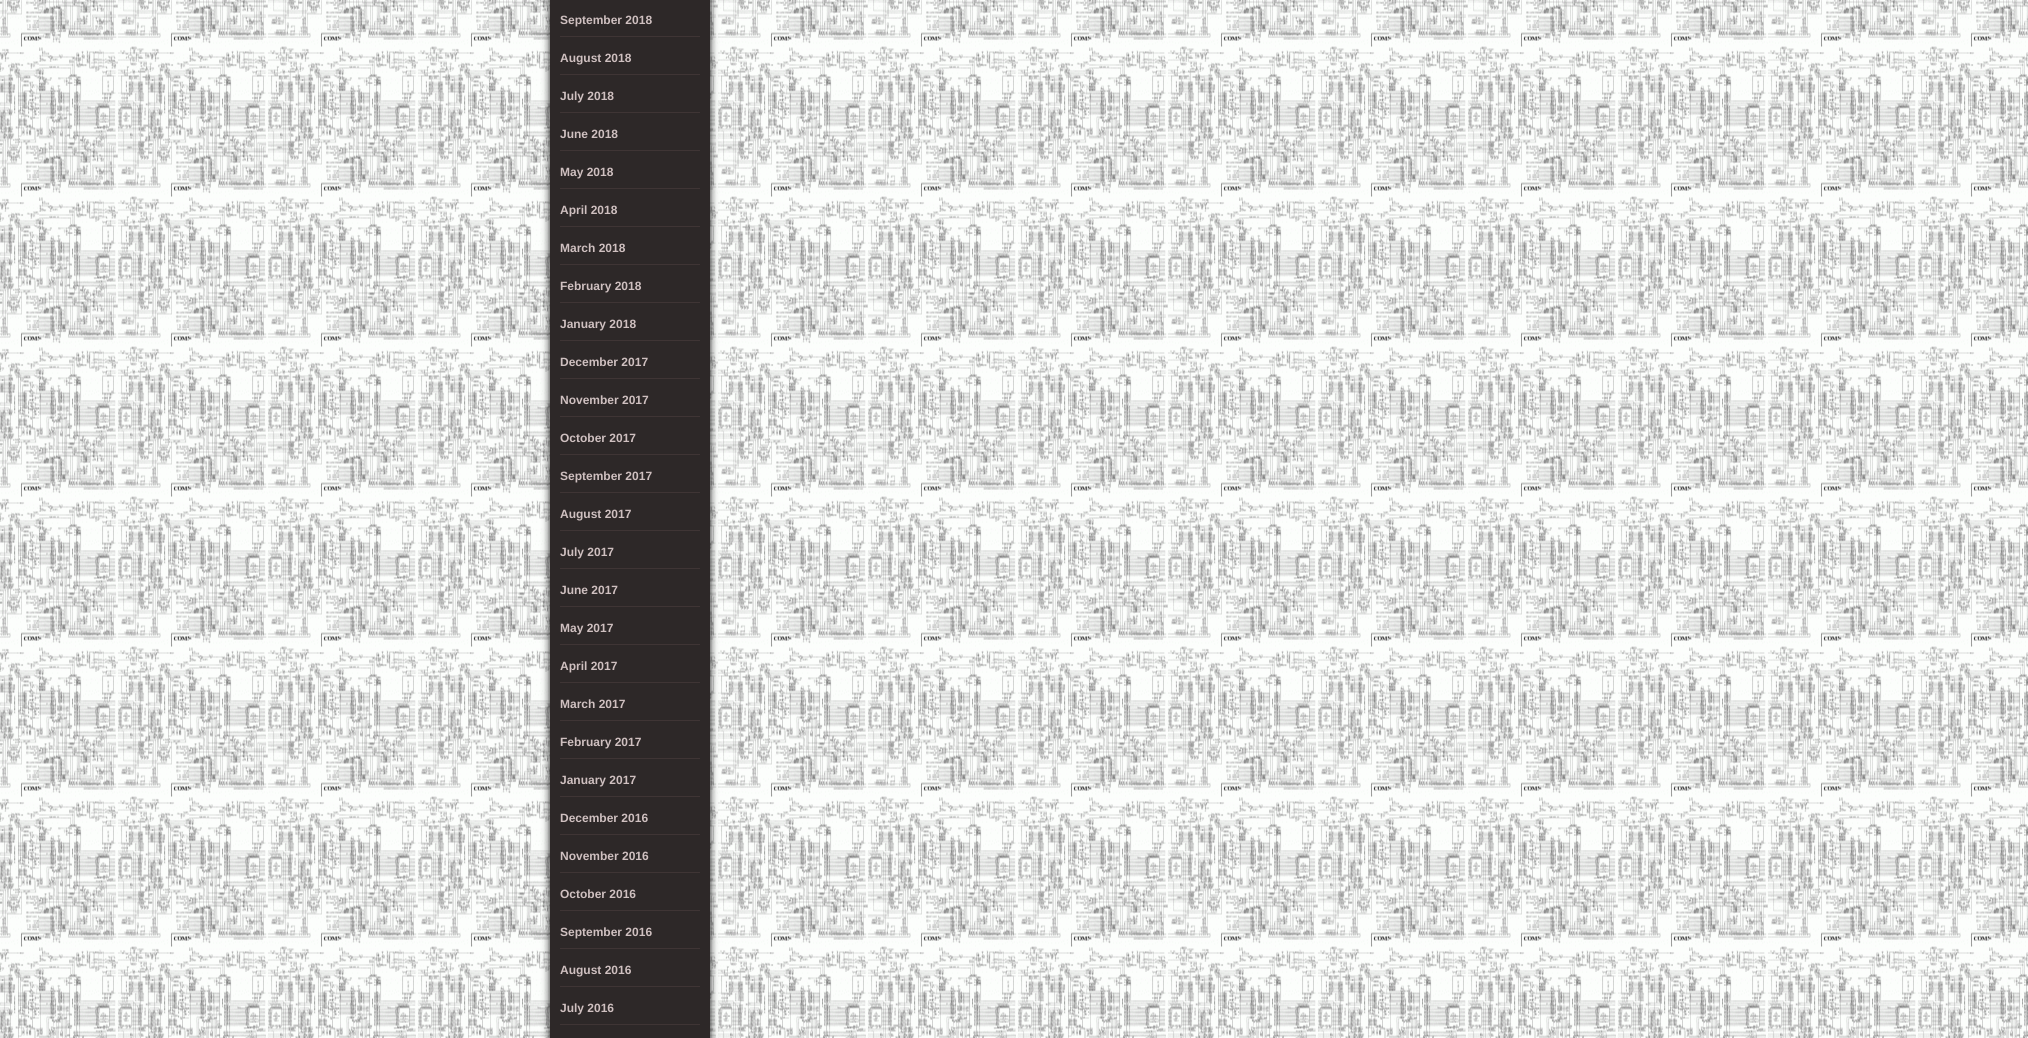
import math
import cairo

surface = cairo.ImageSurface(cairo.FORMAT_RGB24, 2028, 1038)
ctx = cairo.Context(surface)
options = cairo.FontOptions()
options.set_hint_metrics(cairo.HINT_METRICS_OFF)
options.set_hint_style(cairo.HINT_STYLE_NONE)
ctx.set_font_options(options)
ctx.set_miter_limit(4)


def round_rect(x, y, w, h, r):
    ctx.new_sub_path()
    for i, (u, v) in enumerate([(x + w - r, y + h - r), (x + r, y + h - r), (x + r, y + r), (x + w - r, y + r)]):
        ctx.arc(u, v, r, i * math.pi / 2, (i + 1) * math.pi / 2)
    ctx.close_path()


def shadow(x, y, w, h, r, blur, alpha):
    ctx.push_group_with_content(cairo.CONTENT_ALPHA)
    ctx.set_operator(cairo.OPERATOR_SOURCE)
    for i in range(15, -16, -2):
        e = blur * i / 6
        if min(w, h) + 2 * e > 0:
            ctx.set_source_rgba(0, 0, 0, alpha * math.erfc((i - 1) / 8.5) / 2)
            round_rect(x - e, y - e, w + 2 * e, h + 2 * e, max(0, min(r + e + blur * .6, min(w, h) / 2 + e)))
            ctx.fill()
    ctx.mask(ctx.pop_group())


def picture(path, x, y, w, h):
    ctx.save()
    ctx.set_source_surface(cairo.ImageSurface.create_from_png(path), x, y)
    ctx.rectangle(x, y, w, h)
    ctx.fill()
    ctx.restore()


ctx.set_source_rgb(1, 1, 1)
ctx.paint()
picture("img1.png", 0, 0, 2028, 1038)
ctx.set_source_rgb(0.067, 0.067, 0.067)
shadow(550, -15, 160, 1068, 3, 4, 1)
ctx.set_source_rgb(0.176, 0.157, 0.157)
ctx.rectangle(550, 0, 160, 1038)
ctx.fill()
ctx.set_source_rgb(0.247, 0.208, 0.208)
ctx.rectangle(560, 36, 140, 1)
ctx.fill()
ctx.select_font_face("Liberation Sans", cairo.FONT_SLANT_NORMAL, cairo.FONT_WEIGHT_BOLD)
ctx.set_font_size(12)
ctx.set_source_rgb(0.812, 0.753, 0.753)
ctx.move_to(560, 24)
ctx.show_text("September 2018")
ctx.set_source_rgb(0.247, 0.208, 0.208)
ctx.rectangle(560, 74, 140, 1)
ctx.fill()
ctx.set_source_rgb(0.812, 0.753, 0.753)
ctx.move_to(560, 62)
ctx.show_text("August 2018")
ctx.set_source_rgb(0.247, 0.208, 0.208)
ctx.rectangle(560, 112, 140, 1)
ctx.fill()
ctx.set_source_rgb(0.812, 0.753, 0.753)
ctx.move_to(560, 100)
ctx.show_text("July 2018")
ctx.set_source_rgb(0.247, 0.208, 0.208)
ctx.rectangle(560, 150, 140, 1)
ctx.fill()
ctx.set_source_rgb(0.812, 0.753, 0.753)
ctx.move_to(560, 138)
ctx.show_text("June 2018")
ctx.set_source_rgb(0.247, 0.208, 0.208)
ctx.rectangle(560, 188, 140, 1)
ctx.fill()
ctx.set_source_rgb(0.812, 0.753, 0.753)
ctx.move_to(560, 176)
ctx.show_text("May 2018")
ctx.set_source_rgb(0.247, 0.208, 0.208)
ctx.rectangle(560, 226, 140, 1)
ctx.fill()
ctx.set_source_rgb(0.812, 0.753, 0.753)
ctx.move_to(560, 214)
ctx.show_text("April 2018")
ctx.set_source_rgb(0.247, 0.208, 0.208)
ctx.rectangle(560, 264, 140, 1)
ctx.fill()
ctx.set_source_rgb(0.812, 0.753, 0.753)
ctx.move_to(560, 252)
ctx.show_text("March 2018")
ctx.set_source_rgb(0.247, 0.208, 0.208)
ctx.rectangle(560, 302, 140, 1)
ctx.fill()
ctx.set_source_rgb(0.812, 0.753, 0.753)
ctx.move_to(560, 290)
ctx.show_text("February 2018")
ctx.set_source_rgb(0.247, 0.208, 0.208)
ctx.rectangle(560, 340, 140, 1)
ctx.fill()
ctx.set_source_rgb(0.812, 0.753, 0.753)
ctx.move_to(560, 328)
ctx.show_text("January 2018")
ctx.set_source_rgb(0.247, 0.208, 0.208)
ctx.rectangle(560, 378, 140, 1)
ctx.fill()
ctx.set_source_rgb(0.812, 0.753, 0.753)
ctx.move_to(560, 366)
ctx.show_text("December 2017")
ctx.set_source_rgb(0.247, 0.208, 0.208)
ctx.rectangle(560, 416, 140, 1)
ctx.fill()
ctx.set_source_rgb(0.812, 0.753, 0.753)
ctx.move_to(560, 404)
ctx.show_text("November 2017")
ctx.set_source_rgb(0.247, 0.208, 0.208)
ctx.rectangle(560, 454, 140, 1)
ctx.fill()
ctx.set_source_rgb(0.812, 0.753, 0.753)
ctx.move_to(560, 442)
ctx.show_text("October 2017")
ctx.set_source_rgb(0.247, 0.208, 0.208)
ctx.rectangle(560, 492, 140, 1)
ctx.fill()
ctx.set_source_rgb(0.812, 0.753, 0.753)
ctx.move_to(560, 480)
ctx.show_text("September 2017")
ctx.set_source_rgb(0.247, 0.208, 0.208)
ctx.rectangle(560, 530, 140, 1)
ctx.fill()
ctx.set_source_rgb(0.812, 0.753, 0.753)
ctx.move_to(560, 518)
ctx.show_text("August 2017")
ctx.set_source_rgb(0.247, 0.208, 0.208)
ctx.rectangle(560, 568, 140, 1)
ctx.fill()
ctx.set_source_rgb(0.812, 0.753, 0.753)
ctx.move_to(560, 556)
ctx.show_text("July 2017")
ctx.set_source_rgb(0.247, 0.208, 0.208)
ctx.rectangle(560, 606, 140, 1)
ctx.fill()
ctx.set_source_rgb(0.812, 0.753, 0.753)
ctx.move_to(560, 594)
ctx.show_text("June 2017")
ctx.set_source_rgb(0.247, 0.208, 0.208)
ctx.rectangle(560, 644, 140, 1)
ctx.fill()
ctx.set_source_rgb(0.812, 0.753, 0.753)
ctx.move_to(560, 632)
ctx.show_text("May 2017")
ctx.set_source_rgb(0.247, 0.208, 0.208)
ctx.rectangle(560, 682, 140, 1)
ctx.fill()
ctx.set_source_rgb(0.812, 0.753, 0.753)
ctx.move_to(560, 670)
ctx.show_text("April 2017")
ctx.set_source_rgb(0.247, 0.208, 0.208)
ctx.rectangle(560, 720, 140, 1)
ctx.fill()
ctx.set_source_rgb(0.812, 0.753, 0.753)
ctx.move_to(560, 708)
ctx.show_text("March 2017")
ctx.set_source_rgb(0.247, 0.208, 0.208)
ctx.rectangle(560, 758, 140, 1)
ctx.fill()
ctx.set_source_rgb(0.812, 0.753, 0.753)
ctx.move_to(560, 746)
ctx.show_text("February 2017")
ctx.set_source_rgb(0.247, 0.208, 0.208)
ctx.rectangle(560, 796, 140, 1)
ctx.fill()
ctx.set_source_rgb(0.812, 0.753, 0.753)
ctx.move_to(560, 784)
ctx.show_text("January 2017")
ctx.set_source_rgb(0.247, 0.208, 0.208)
ctx.rectangle(560, 834, 140, 1)
ctx.fill()
ctx.set_source_rgb(0.812, 0.753, 0.753)
ctx.move_to(560, 822)
ctx.show_text("December 2016")
ctx.set_source_rgb(0.247, 0.208, 0.208)
ctx.rectangle(560, 872, 140, 1)
ctx.fill()
ctx.set_source_rgb(0.812, 0.753, 0.753)
ctx.move_to(560, 860)
ctx.show_text("November 2016")
ctx.set_source_rgb(0.247, 0.208, 0.208)
ctx.rectangle(560, 910, 140, 1)
ctx.fill()
ctx.set_source_rgb(0.812, 0.753, 0.753)
ctx.move_to(560, 898)
ctx.show_text("October 2016")
ctx.set_source_rgb(0.247, 0.208, 0.208)
ctx.rectangle(560, 948, 140, 1)
ctx.fill()
ctx.set_source_rgb(0.812, 0.753, 0.753)
ctx.move_to(560, 936)
ctx.show_text("September 2016")
ctx.set_source_rgb(0.247, 0.208, 0.208)
ctx.rectangle(560, 986, 140, 1)
ctx.fill()
ctx.set_source_rgb(0.812, 0.753, 0.753)
ctx.move_to(560, 974)
ctx.show_text("August 2016")
ctx.set_source_rgb(0.247, 0.208, 0.208)
ctx.rectangle(560, 1024, 140, 1)
ctx.fill()
ctx.set_source_rgb(0.812, 0.753, 0.753)
ctx.move_to(560, 1012)
ctx.show_text("July 2016")
surface.write_to_png("page.png")
